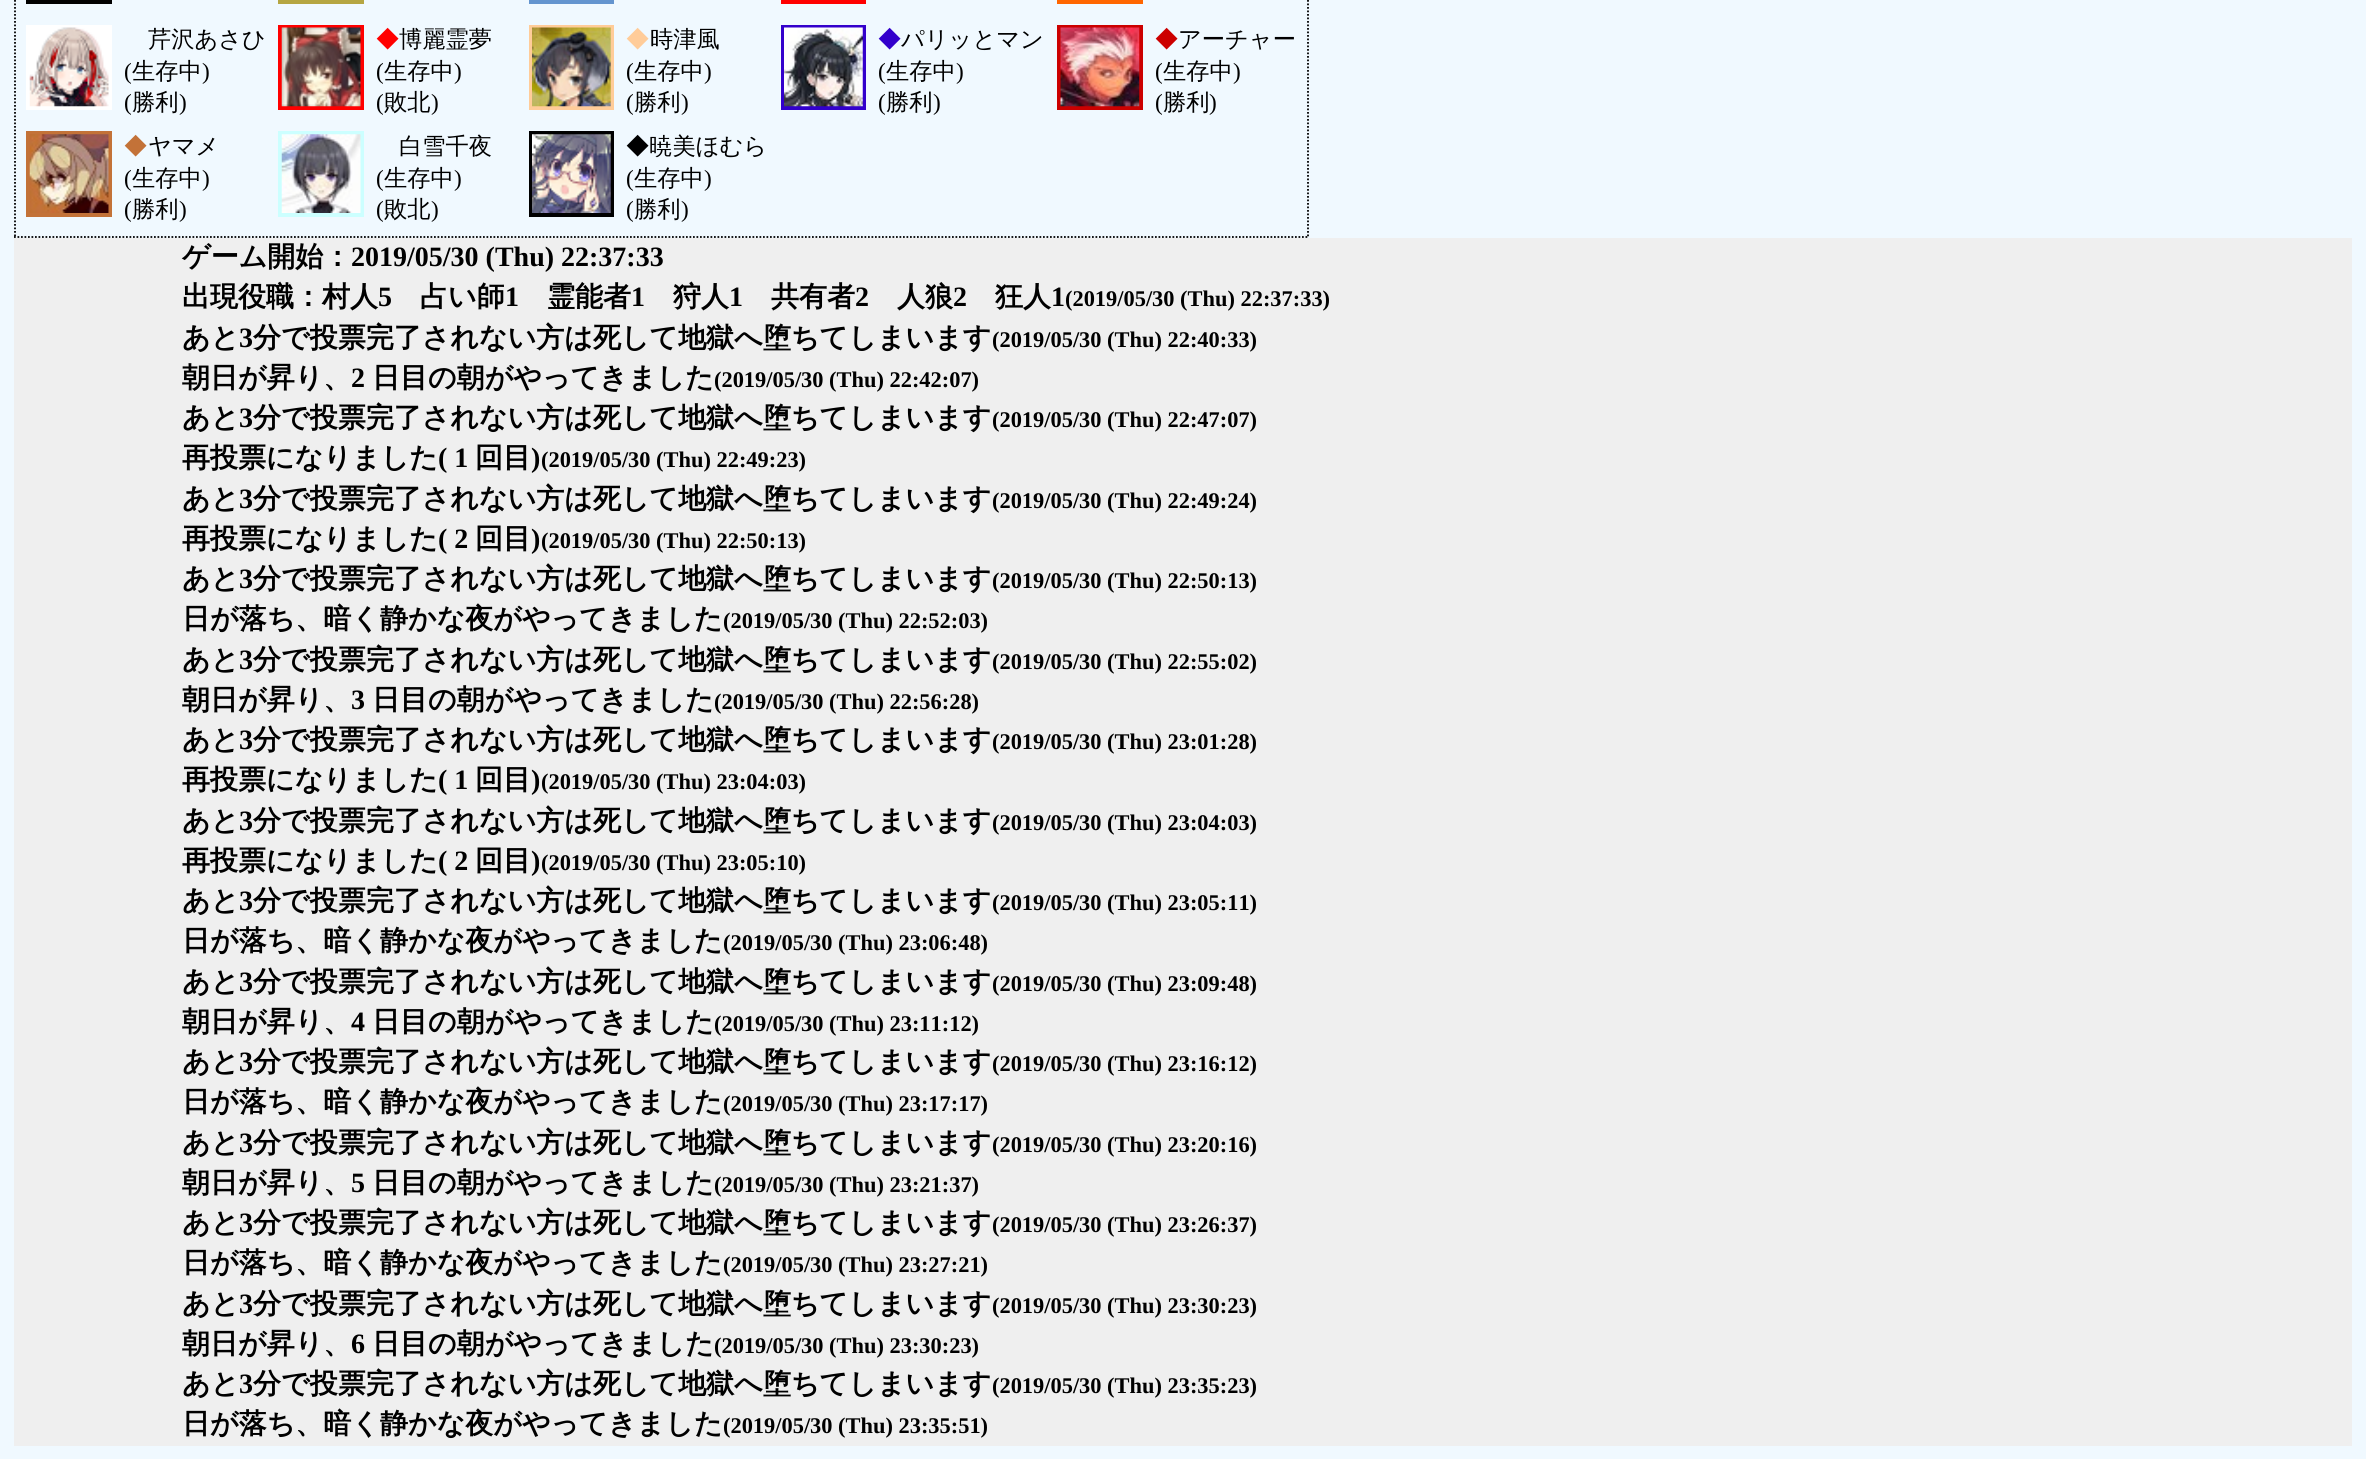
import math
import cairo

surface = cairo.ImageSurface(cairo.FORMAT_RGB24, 2366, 1459)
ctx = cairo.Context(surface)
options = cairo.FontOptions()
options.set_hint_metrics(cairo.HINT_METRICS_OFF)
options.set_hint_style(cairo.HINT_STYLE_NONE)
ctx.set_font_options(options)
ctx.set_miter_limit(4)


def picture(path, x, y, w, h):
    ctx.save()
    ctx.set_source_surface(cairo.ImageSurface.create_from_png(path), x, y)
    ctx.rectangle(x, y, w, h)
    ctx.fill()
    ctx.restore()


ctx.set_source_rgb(0.941, 0.973, 1)
ctx.paint()
ctx.new_path()
ctx.move_to(1308, -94.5)
ctx.line_to(1308, 238)
ctx.set_source_rgb(0, 0, 0)
ctx.set_line_width(1.8)
ctx.set_dash([1.75, 1.75])
ctx.stroke()
ctx.new_path()
ctx.move_to(14, 237)
ctx.line_to(1309, 237)
ctx.stroke()
ctx.new_path()
ctx.move_to(15, -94.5)
ctx.line_to(15, 238)
ctx.stroke()
ctx.rectangle(28, -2, 82, 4)
ctx.set_line_width(4)
ctx.set_dash([])
ctx.stroke()
ctx.rectangle(280, -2, 82, 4)
ctx.set_source_rgb(0.71, 0.651, 0.259)
ctx.stroke()
ctx.rectangle(531, -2, 81, 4)
ctx.set_source_rgb(0.392, 0.584, 0.812)
ctx.stroke()
ctx.rectangle(783, -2, 81, 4)
ctx.set_source_rgb(1, 0, 0)
ctx.stroke()
ctx.rectangle(1059, -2, 82, 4)
ctx.set_source_rgb(1, 0.4, 0)
ctx.stroke()
ctx.rectangle(28, 27, 82, 81)
ctx.set_source_rgb(1, 1, 1)
ctx.stroke()
picture("img1.png", 29, 27, 80, 80)
ctx.select_font_face("WenQuanYi Zen Hei Medium")
ctx.set_font_size(23.25)
ctx.set_source_rgb(0, 0, 0)
ctx.move_to(148, 47)
ctx.show_text("芹沢あさひ")
ctx.select_font_face("Liberation Serif")
ctx.move_to(124, 79)
ctx.show_text("(")
ctx.select_font_face("WenQuanYi Zen Hei Medium")
ctx.move_to(132, 79)
ctx.show_text("生存中")
ctx.select_font_face("Liberation Serif")
ctx.move_to(202, 79)
ctx.show_text(")")
ctx.move_to(124, 110)
ctx.show_text("(")
ctx.select_font_face("WenQuanYi Zen Hei Medium")
ctx.move_to(132, 110)
ctx.show_text("勝利")
ctx.select_font_face("Liberation Serif")
ctx.move_to(179, 110)
ctx.show_text(")")
ctx.rectangle(280, 27, 82, 81)
ctx.set_source_rgb(1, 0, 0)
ctx.stroke()
picture("img2.png", 281, 27, 80, 80)
ctx.select_font_face("WenQuanYi Zen Hei Medium")
ctx.move_to(376, 47)
ctx.show_text("◆")
ctx.set_source_rgb(0, 0, 0)
ctx.move_to(399, 47)
ctx.show_text("博麗霊夢")
ctx.select_font_face("Liberation Serif")
ctx.move_to(376, 79)
ctx.show_text("(")
ctx.select_font_face("WenQuanYi Zen Hei Medium")
ctx.move_to(384, 79)
ctx.show_text("生存中")
ctx.select_font_face("Liberation Serif")
ctx.move_to(454, 79)
ctx.show_text(")")
ctx.move_to(376, 110)
ctx.show_text("(")
ctx.select_font_face("WenQuanYi Zen Hei Medium")
ctx.move_to(384, 110)
ctx.show_text("敗北")
ctx.select_font_face("Liberation Serif")
ctx.move_to(431, 110)
ctx.show_text(")")
ctx.rectangle(531, 27, 81, 81)
ctx.set_source_rgb(1, 0.8, 0.6)
ctx.stroke()
picture("img3.png", 532, 27, 79, 80)
ctx.select_font_face("WenQuanYi Zen Hei Medium")
ctx.move_to(626, 47)
ctx.show_text("◆")
ctx.set_source_rgb(0, 0, 0)
ctx.move_to(650, 47)
ctx.show_text("時津風")
ctx.select_font_face("Liberation Serif")
ctx.move_to(626, 79)
ctx.show_text("(")
ctx.select_font_face("WenQuanYi Zen Hei Medium")
ctx.move_to(634, 79)
ctx.show_text("生存中")
ctx.select_font_face("Liberation Serif")
ctx.move_to(704, 79)
ctx.show_text(")")
ctx.move_to(626, 110)
ctx.show_text("(")
ctx.select_font_face("WenQuanYi Zen Hei Medium")
ctx.move_to(634, 110)
ctx.show_text("勝利")
ctx.select_font_face("Liberation Serif")
ctx.move_to(681, 110)
ctx.show_text(")")
ctx.rectangle(783, 27, 81, 81)
ctx.set_source_rgb(0.2, 0, 0.8)
ctx.stroke()
picture("img4.png", 784, 27, 79, 80)
ctx.select_font_face("WenQuanYi Zen Hei Medium")
ctx.move_to(878, 47)
ctx.show_text("◆")
ctx.set_source_rgb(0, 0, 0)
ctx.move_to(901, 47)
ctx.show_text("パリッとマン")
ctx.select_font_face("Liberation Serif")
ctx.move_to(878, 79)
ctx.show_text("(")
ctx.select_font_face("WenQuanYi Zen Hei Medium")
ctx.move_to(886, 79)
ctx.show_text("生存中")
ctx.select_font_face("Liberation Serif")
ctx.move_to(956, 79)
ctx.show_text(")")
ctx.move_to(878, 110)
ctx.show_text("(")
ctx.select_font_face("WenQuanYi Zen Hei Medium")
ctx.move_to(886, 110)
ctx.show_text("勝利")
ctx.select_font_face("Liberation Serif")
ctx.move_to(933, 110)
ctx.show_text(")")
ctx.rectangle(1059, 27, 82, 81)
ctx.set_source_rgb(0.8, 0, 0)
ctx.stroke()
picture("img5.png", 1060, 27, 80, 80)
ctx.select_font_face("WenQuanYi Zen Hei Medium")
ctx.move_to(1155, 47)
ctx.show_text("◆")
ctx.set_source_rgb(0, 0, 0)
ctx.move_to(1178, 47)
ctx.show_text("アーチャー")
ctx.select_font_face("Liberation Serif")
ctx.move_to(1155, 79)
ctx.show_text("(")
ctx.select_font_face("WenQuanYi Zen Hei Medium")
ctx.move_to(1163, 79)
ctx.show_text("生存中")
ctx.select_font_face("Liberation Serif")
ctx.move_to(1233, 79)
ctx.show_text(")")
ctx.move_to(1155, 110)
ctx.show_text("(")
ctx.select_font_face("WenQuanYi Zen Hei Medium")
ctx.move_to(1163, 110)
ctx.show_text("勝利")
ctx.select_font_face("Liberation Serif")
ctx.move_to(1209, 110)
ctx.show_text(")")
ctx.rectangle(28, 133, 82, 82)
ctx.set_source_rgb(0.765, 0.447, 0.22)
ctx.stroke()
picture("img6.png", 29, 134, 80, 79)
ctx.select_font_face("WenQuanYi Zen Hei Medium")
ctx.move_to(124, 154)
ctx.show_text("◆")
ctx.set_source_rgb(0, 0, 0)
ctx.move_to(148, 154)
ctx.show_text("ヤマメ")
ctx.select_font_face("Liberation Serif")
ctx.move_to(124, 186)
ctx.show_text("(")
ctx.select_font_face("WenQuanYi Zen Hei Medium")
ctx.move_to(132, 186)
ctx.show_text("生存中")
ctx.select_font_face("Liberation Serif")
ctx.move_to(202, 186)
ctx.show_text(")")
ctx.move_to(124, 217)
ctx.show_text("(")
ctx.select_font_face("WenQuanYi Zen Hei Medium")
ctx.move_to(132, 217)
ctx.show_text("勝利")
ctx.select_font_face("Liberation Serif")
ctx.move_to(179, 217)
ctx.show_text(")")
ctx.rectangle(280, 133, 82, 82)
ctx.set_source_rgb(0.8, 1, 1)
ctx.stroke()
picture("img7.png", 281, 134, 80, 79)
ctx.select_font_face("WenQuanYi Zen Hei Medium")
ctx.set_source_rgb(0, 0, 0)
ctx.move_to(399, 154)
ctx.show_text("白雪千夜")
ctx.select_font_face("Liberation Serif")
ctx.move_to(376, 186)
ctx.show_text("(")
ctx.select_font_face("WenQuanYi Zen Hei Medium")
ctx.move_to(384, 186)
ctx.show_text("生存中")
ctx.select_font_face("Liberation Serif")
ctx.move_to(454, 186)
ctx.show_text(")")
ctx.move_to(376, 217)
ctx.show_text("(")
ctx.select_font_face("WenQuanYi Zen Hei Medium")
ctx.move_to(384, 217)
ctx.show_text("敗北")
ctx.select_font_face("Liberation Serif")
ctx.move_to(431, 217)
ctx.show_text(")")
ctx.rectangle(531, 133, 81, 82)
ctx.stroke()
picture("img8.png", 532, 134, 79, 79)
ctx.select_font_face("WenQuanYi Zen Hei Medium")
ctx.move_to(626, 154)
ctx.show_text("◆暁美ほむら")
ctx.select_font_face("Liberation Serif")
ctx.move_to(626, 186)
ctx.show_text("(")
ctx.select_font_face("WenQuanYi Zen Hei Medium")
ctx.move_to(634, 186)
ctx.show_text("生存中")
ctx.select_font_face("Liberation Serif")
ctx.move_to(704, 186)
ctx.show_text(")")
ctx.move_to(626, 217)
ctx.show_text("(")
ctx.select_font_face("WenQuanYi Zen Hei Medium")
ctx.move_to(634, 217)
ctx.show_text("勝利")
ctx.select_font_face("Liberation Serif")
ctx.move_to(681, 217)
ctx.show_text(")")
ctx.set_source_rgb(0.937, 0.937, 0.937)
ctx.rectangle(14, 238, 2338, 1208)
ctx.fill()
ctx.select_font_face("WenQuanYi Zen Hei", cairo.FONT_SLANT_NORMAL, cairo.FONT_WEIGHT_BOLD)
ctx.set_font_size(28)
ctx.set_source_rgb(0, 0, 0)
ctx.move_to(182, 266)
ctx.show_text("ゲーム開始：")
ctx.select_font_face("Liberation Serif", cairo.FONT_SLANT_NORMAL, cairo.FONT_WEIGHT_BOLD)
ctx.move_to(351, 266)
ctx.show_text("2019/05/30 (Thu) 22:37:33")
ctx.select_font_face("WenQuanYi Zen Hei", cairo.FONT_SLANT_NORMAL, cairo.FONT_WEIGHT_BOLD)
ctx.move_to(182, 306)
ctx.show_text("出現役職：村人")
ctx.select_font_face("Liberation Serif", cairo.FONT_SLANT_NORMAL, cairo.FONT_WEIGHT_BOLD)
ctx.move_to(378, 306)
ctx.show_text("5")
ctx.select_font_face("WenQuanYi Zen Hei", cairo.FONT_SLANT_NORMAL, cairo.FONT_WEIGHT_BOLD)
ctx.move_to(420, 306)
ctx.show_text("占い師")
ctx.select_font_face("Liberation Serif", cairo.FONT_SLANT_NORMAL, cairo.FONT_WEIGHT_BOLD)
ctx.move_to(505, 306)
ctx.show_text("1")
ctx.select_font_face("WenQuanYi Zen Hei", cairo.FONT_SLANT_NORMAL, cairo.FONT_WEIGHT_BOLD)
ctx.move_to(547, 306)
ctx.show_text("霊能者")
ctx.select_font_face("Liberation Serif", cairo.FONT_SLANT_NORMAL, cairo.FONT_WEIGHT_BOLD)
ctx.move_to(631, 306)
ctx.show_text("1")
ctx.select_font_face("WenQuanYi Zen Hei", cairo.FONT_SLANT_NORMAL, cairo.FONT_WEIGHT_BOLD)
ctx.move_to(673, 306)
ctx.show_text("狩人")
ctx.select_font_face("Liberation Serif", cairo.FONT_SLANT_NORMAL, cairo.FONT_WEIGHT_BOLD)
ctx.move_to(729, 306)
ctx.show_text("1")
ctx.select_font_face("WenQuanYi Zen Hei", cairo.FONT_SLANT_NORMAL, cairo.FONT_WEIGHT_BOLD)
ctx.move_to(771, 306)
ctx.show_text("共有者")
ctx.select_font_face("Liberation Serif", cairo.FONT_SLANT_NORMAL, cairo.FONT_WEIGHT_BOLD)
ctx.move_to(855, 306)
ctx.show_text("2")
ctx.select_font_face("WenQuanYi Zen Hei", cairo.FONT_SLANT_NORMAL, cairo.FONT_WEIGHT_BOLD)
ctx.move_to(897, 306)
ctx.show_text("人狼")
ctx.select_font_face("Liberation Serif", cairo.FONT_SLANT_NORMAL, cairo.FONT_WEIGHT_BOLD)
ctx.move_to(953, 306)
ctx.show_text("2")
ctx.select_font_face("WenQuanYi Zen Hei", cairo.FONT_SLANT_NORMAL, cairo.FONT_WEIGHT_BOLD)
ctx.move_to(995, 306)
ctx.show_text("狂人")
ctx.select_font_face("Liberation Serif", cairo.FONT_SLANT_NORMAL, cairo.FONT_WEIGHT_BOLD)
ctx.move_to(1051, 306)
ctx.show_text("1")
ctx.set_font_size(22.4)
ctx.move_to(1065, 306)
ctx.show_text("(2019/05/30 (Thu) 22:37:33)")
ctx.select_font_face("WenQuanYi Zen Hei", cairo.FONT_SLANT_NORMAL, cairo.FONT_WEIGHT_BOLD)
ctx.set_font_size(28)
ctx.move_to(182, 347)
ctx.show_text("あと")
ctx.select_font_face("Liberation Serif", cairo.FONT_SLANT_NORMAL, cairo.FONT_WEIGHT_BOLD)
ctx.move_to(239, 347)
ctx.show_text("3")
ctx.select_font_face("WenQuanYi Zen Hei", cairo.FONT_SLANT_NORMAL, cairo.FONT_WEIGHT_BOLD)
ctx.move_to(253, 347)
ctx.show_text("分で投票完了されない方は死して地獄へ堕ちてしまいます")
ctx.select_font_face("Liberation Serif", cairo.FONT_SLANT_NORMAL, cairo.FONT_WEIGHT_BOLD)
ctx.set_font_size(22.4)
ctx.move_to(992, 347)
ctx.show_text("(2019/05/30 (Thu) 22:40:33)")
ctx.select_font_face("WenQuanYi Zen Hei", cairo.FONT_SLANT_NORMAL, cairo.FONT_WEIGHT_BOLD)
ctx.set_font_size(28)
ctx.move_to(182, 387)
ctx.show_text("朝日が昇り、")
ctx.select_font_face("Liberation Serif", cairo.FONT_SLANT_NORMAL, cairo.FONT_WEIGHT_BOLD)
ctx.move_to(351, 387)
ctx.show_text("2")
ctx.select_font_face("WenQuanYi Zen Hei", cairo.FONT_SLANT_NORMAL, cairo.FONT_WEIGHT_BOLD)
ctx.move_to(372, 387)
ctx.show_text("日目の朝がやってきました")
ctx.select_font_face("Liberation Serif", cairo.FONT_SLANT_NORMAL, cairo.FONT_WEIGHT_BOLD)
ctx.set_font_size(22.4)
ctx.move_to(714, 387)
ctx.show_text("(2019/05/30 (Thu) 22:42:07)")
ctx.select_font_face("WenQuanYi Zen Hei", cairo.FONT_SLANT_NORMAL, cairo.FONT_WEIGHT_BOLD)
ctx.set_font_size(28)
ctx.move_to(182, 427)
ctx.show_text("あと")
ctx.select_font_face("Liberation Serif", cairo.FONT_SLANT_NORMAL, cairo.FONT_WEIGHT_BOLD)
ctx.move_to(239, 427)
ctx.show_text("3")
ctx.select_font_face("WenQuanYi Zen Hei", cairo.FONT_SLANT_NORMAL, cairo.FONT_WEIGHT_BOLD)
ctx.move_to(253, 427)
ctx.show_text("分で投票完了されない方は死して地獄へ堕ちてしまいます")
ctx.select_font_face("Liberation Serif", cairo.FONT_SLANT_NORMAL, cairo.FONT_WEIGHT_BOLD)
ctx.set_font_size(22.4)
ctx.move_to(992, 427)
ctx.show_text("(2019/05/30 (Thu) 22:47:07)")
ctx.select_font_face("WenQuanYi Zen Hei", cairo.FONT_SLANT_NORMAL, cairo.FONT_WEIGHT_BOLD)
ctx.set_font_size(28)
ctx.move_to(182, 467)
ctx.show_text("再投票になりました")
ctx.select_font_face("Liberation Serif", cairo.FONT_SLANT_NORMAL, cairo.FONT_WEIGHT_BOLD)
ctx.move_to(438, 467)
ctx.show_text("( 1")
ctx.select_font_face("WenQuanYi Zen Hei", cairo.FONT_SLANT_NORMAL, cairo.FONT_WEIGHT_BOLD)
ctx.move_to(475, 467)
ctx.show_text("回目")
ctx.select_font_face("Liberation Serif", cairo.FONT_SLANT_NORMAL, cairo.FONT_WEIGHT_BOLD)
ctx.move_to(531, 467)
ctx.show_text(")")
ctx.set_font_size(22.4)
ctx.move_to(541, 467)
ctx.show_text("(2019/05/30 (Thu) 22:49:23)")
ctx.select_font_face("WenQuanYi Zen Hei", cairo.FONT_SLANT_NORMAL, cairo.FONT_WEIGHT_BOLD)
ctx.set_font_size(28)
ctx.move_to(182, 508)
ctx.show_text("あと")
ctx.select_font_face("Liberation Serif", cairo.FONT_SLANT_NORMAL, cairo.FONT_WEIGHT_BOLD)
ctx.move_to(239, 508)
ctx.show_text("3")
ctx.select_font_face("WenQuanYi Zen Hei", cairo.FONT_SLANT_NORMAL, cairo.FONT_WEIGHT_BOLD)
ctx.move_to(253, 508)
ctx.show_text("分で投票完了されない方は死して地獄へ堕ちてしまいます")
ctx.select_font_face("Liberation Serif", cairo.FONT_SLANT_NORMAL, cairo.FONT_WEIGHT_BOLD)
ctx.set_font_size(22.4)
ctx.move_to(992, 508)
ctx.show_text("(2019/05/30 (Thu) 22:49:24)")
ctx.select_font_face("WenQuanYi Zen Hei", cairo.FONT_SLANT_NORMAL, cairo.FONT_WEIGHT_BOLD)
ctx.set_font_size(28)
ctx.move_to(182, 548)
ctx.show_text("再投票になりました")
ctx.select_font_face("Liberation Serif", cairo.FONT_SLANT_NORMAL, cairo.FONT_WEIGHT_BOLD)
ctx.move_to(438, 548)
ctx.show_text("( 2")
ctx.select_font_face("WenQuanYi Zen Hei", cairo.FONT_SLANT_NORMAL, cairo.FONT_WEIGHT_BOLD)
ctx.move_to(475, 548)
ctx.show_text("回目")
ctx.select_font_face("Liberation Serif", cairo.FONT_SLANT_NORMAL, cairo.FONT_WEIGHT_BOLD)
ctx.move_to(531, 548)
ctx.show_text(")")
ctx.set_font_size(22.4)
ctx.move_to(541, 548)
ctx.show_text("(2019/05/30 (Thu) 22:50:13)")
ctx.select_font_face("WenQuanYi Zen Hei", cairo.FONT_SLANT_NORMAL, cairo.FONT_WEIGHT_BOLD)
ctx.set_font_size(28)
ctx.move_to(182, 588)
ctx.show_text("あと")
ctx.select_font_face("Liberation Serif", cairo.FONT_SLANT_NORMAL, cairo.FONT_WEIGHT_BOLD)
ctx.move_to(239, 588)
ctx.show_text("3")
ctx.select_font_face("WenQuanYi Zen Hei", cairo.FONT_SLANT_NORMAL, cairo.FONT_WEIGHT_BOLD)
ctx.move_to(253, 588)
ctx.show_text("分で投票完了されない方は死して地獄へ堕ちてしまいます")
ctx.select_font_face("Liberation Serif", cairo.FONT_SLANT_NORMAL, cairo.FONT_WEIGHT_BOLD)
ctx.set_font_size(22.4)
ctx.move_to(992, 588)
ctx.show_text("(2019/05/30 (Thu) 22:50:13)")
ctx.select_font_face("WenQuanYi Zen Hei", cairo.FONT_SLANT_NORMAL, cairo.FONT_WEIGHT_BOLD)
ctx.set_font_size(28)
ctx.move_to(182, 628)
ctx.show_text("日が落ち、暗く静かな夜がやってきました")
ctx.select_font_face("Liberation Serif", cairo.FONT_SLANT_NORMAL, cairo.FONT_WEIGHT_BOLD)
ctx.set_font_size(22.4)
ctx.move_to(723, 628)
ctx.show_text("(2019/05/30 (Thu) 22:52:03)")
ctx.select_font_face("WenQuanYi Zen Hei", cairo.FONT_SLANT_NORMAL, cairo.FONT_WEIGHT_BOLD)
ctx.set_font_size(28)
ctx.move_to(182, 669)
ctx.show_text("あと")
ctx.select_font_face("Liberation Serif", cairo.FONT_SLANT_NORMAL, cairo.FONT_WEIGHT_BOLD)
ctx.move_to(239, 669)
ctx.show_text("3")
ctx.select_font_face("WenQuanYi Zen Hei", cairo.FONT_SLANT_NORMAL, cairo.FONT_WEIGHT_BOLD)
ctx.move_to(253, 669)
ctx.show_text("分で投票完了されない方は死して地獄へ堕ちてしまいます")
ctx.select_font_face("Liberation Serif", cairo.FONT_SLANT_NORMAL, cairo.FONT_WEIGHT_BOLD)
ctx.set_font_size(22.4)
ctx.move_to(992, 669)
ctx.show_text("(2019/05/30 (Thu) 22:55:02)")
ctx.select_font_face("WenQuanYi Zen Hei", cairo.FONT_SLANT_NORMAL, cairo.FONT_WEIGHT_BOLD)
ctx.set_font_size(28)
ctx.move_to(182, 709)
ctx.show_text("朝日が昇り、")
ctx.select_font_face("Liberation Serif", cairo.FONT_SLANT_NORMAL, cairo.FONT_WEIGHT_BOLD)
ctx.move_to(351, 709)
ctx.show_text("3")
ctx.select_font_face("WenQuanYi Zen Hei", cairo.FONT_SLANT_NORMAL, cairo.FONT_WEIGHT_BOLD)
ctx.move_to(372, 709)
ctx.show_text("日目の朝がやってきました")
ctx.select_font_face("Liberation Serif", cairo.FONT_SLANT_NORMAL, cairo.FONT_WEIGHT_BOLD)
ctx.set_font_size(22.4)
ctx.move_to(714, 709)
ctx.show_text("(2019/05/30 (Thu) 22:56:28)")
ctx.select_font_face("WenQuanYi Zen Hei", cairo.FONT_SLANT_NORMAL, cairo.FONT_WEIGHT_BOLD)
ctx.set_font_size(28)
ctx.move_to(182, 749)
ctx.show_text("あと")
ctx.select_font_face("Liberation Serif", cairo.FONT_SLANT_NORMAL, cairo.FONT_WEIGHT_BOLD)
ctx.move_to(239, 749)
ctx.show_text("3")
ctx.select_font_face("WenQuanYi Zen Hei", cairo.FONT_SLANT_NORMAL, cairo.FONT_WEIGHT_BOLD)
ctx.move_to(253, 749)
ctx.show_text("分で投票完了されない方は死して地獄へ堕ちてしまいます")
ctx.select_font_face("Liberation Serif", cairo.FONT_SLANT_NORMAL, cairo.FONT_WEIGHT_BOLD)
ctx.set_font_size(22.4)
ctx.move_to(992, 749)
ctx.show_text("(2019/05/30 (Thu) 23:01:28)")
ctx.select_font_face("WenQuanYi Zen Hei", cairo.FONT_SLANT_NORMAL, cairo.FONT_WEIGHT_BOLD)
ctx.set_font_size(28)
ctx.move_to(182, 789)
ctx.show_text("再投票になりました")
ctx.select_font_face("Liberation Serif", cairo.FONT_SLANT_NORMAL, cairo.FONT_WEIGHT_BOLD)
ctx.move_to(438, 789)
ctx.show_text("( 1")
ctx.select_font_face("WenQuanYi Zen Hei", cairo.FONT_SLANT_NORMAL, cairo.FONT_WEIGHT_BOLD)
ctx.move_to(475, 789)
ctx.show_text("回目")
ctx.select_font_face("Liberation Serif", cairo.FONT_SLANT_NORMAL, cairo.FONT_WEIGHT_BOLD)
ctx.move_to(531, 789)
ctx.show_text(")")
ctx.set_font_size(22.4)
ctx.move_to(541, 789)
ctx.show_text("(2019/05/30 (Thu) 23:04:03)")
ctx.select_font_face("WenQuanYi Zen Hei", cairo.FONT_SLANT_NORMAL, cairo.FONT_WEIGHT_BOLD)
ctx.set_font_size(28)
ctx.move_to(182, 830)
ctx.show_text("あと")
ctx.select_font_face("Liberation Serif", cairo.FONT_SLANT_NORMAL, cairo.FONT_WEIGHT_BOLD)
ctx.move_to(239, 830)
ctx.show_text("3")
ctx.select_font_face("WenQuanYi Zen Hei", cairo.FONT_SLANT_NORMAL, cairo.FONT_WEIGHT_BOLD)
ctx.move_to(253, 830)
ctx.show_text("分で投票完了されない方は死して地獄へ堕ちてしまいます")
ctx.select_font_face("Liberation Serif", cairo.FONT_SLANT_NORMAL, cairo.FONT_WEIGHT_BOLD)
ctx.set_font_size(22.4)
ctx.move_to(992, 830)
ctx.show_text("(2019/05/30 (Thu) 23:04:03)")
ctx.select_font_face("WenQuanYi Zen Hei", cairo.FONT_SLANT_NORMAL, cairo.FONT_WEIGHT_BOLD)
ctx.set_font_size(28)
ctx.move_to(182, 870)
ctx.show_text("再投票になりました")
ctx.select_font_face("Liberation Serif", cairo.FONT_SLANT_NORMAL, cairo.FONT_WEIGHT_BOLD)
ctx.move_to(438, 870)
ctx.show_text("( 2")
ctx.select_font_face("WenQuanYi Zen Hei", cairo.FONT_SLANT_NORMAL, cairo.FONT_WEIGHT_BOLD)
ctx.move_to(475, 870)
ctx.show_text("回目")
ctx.select_font_face("Liberation Serif", cairo.FONT_SLANT_NORMAL, cairo.FONT_WEIGHT_BOLD)
ctx.move_to(531, 870)
ctx.show_text(")")
ctx.set_font_size(22.4)
ctx.move_to(541, 870)
ctx.show_text("(2019/05/30 (Thu) 23:05:10)")
ctx.select_font_face("WenQuanYi Zen Hei", cairo.FONT_SLANT_NORMAL, cairo.FONT_WEIGHT_BOLD)
ctx.set_font_size(28)
ctx.move_to(182, 910)
ctx.show_text("あと")
ctx.select_font_face("Liberation Serif", cairo.FONT_SLANT_NORMAL, cairo.FONT_WEIGHT_BOLD)
ctx.move_to(239, 910)
ctx.show_text("3")
ctx.select_font_face("WenQuanYi Zen Hei", cairo.FONT_SLANT_NORMAL, cairo.FONT_WEIGHT_BOLD)
ctx.move_to(253, 910)
ctx.show_text("分で投票完了されない方は死して地獄へ堕ちてしまいます")
ctx.select_font_face("Liberation Serif", cairo.FONT_SLANT_NORMAL, cairo.FONT_WEIGHT_BOLD)
ctx.set_font_size(22.4)
ctx.move_to(992, 910)
ctx.show_text("(2019/05/30 (Thu) 23:05:11)")
ctx.select_font_face("WenQuanYi Zen Hei", cairo.FONT_SLANT_NORMAL, cairo.FONT_WEIGHT_BOLD)
ctx.set_font_size(28)
ctx.move_to(182, 950)
ctx.show_text("日が落ち、暗く静かな夜がやってきました")
ctx.select_font_face("Liberation Serif", cairo.FONT_SLANT_NORMAL, cairo.FONT_WEIGHT_BOLD)
ctx.set_font_size(22.4)
ctx.move_to(723, 950)
ctx.show_text("(2019/05/30 (Thu) 23:06:48)")
ctx.select_font_face("WenQuanYi Zen Hei", cairo.FONT_SLANT_NORMAL, cairo.FONT_WEIGHT_BOLD)
ctx.set_font_size(28)
ctx.move_to(182, 991)
ctx.show_text("あと")
ctx.select_font_face("Liberation Serif", cairo.FONT_SLANT_NORMAL, cairo.FONT_WEIGHT_BOLD)
ctx.move_to(239, 991)
ctx.show_text("3")
ctx.select_font_face("WenQuanYi Zen Hei", cairo.FONT_SLANT_NORMAL, cairo.FONT_WEIGHT_BOLD)
ctx.move_to(253, 991)
ctx.show_text("分で投票完了されない方は死して地獄へ堕ちてしまいます")
ctx.select_font_face("Liberation Serif", cairo.FONT_SLANT_NORMAL, cairo.FONT_WEIGHT_BOLD)
ctx.set_font_size(22.4)
ctx.move_to(992, 991)
ctx.show_text("(2019/05/30 (Thu) 23:09:48)")
ctx.select_font_face("WenQuanYi Zen Hei", cairo.FONT_SLANT_NORMAL, cairo.FONT_WEIGHT_BOLD)
ctx.set_font_size(28)
ctx.move_to(182, 1031)
ctx.show_text("朝日が昇り、")
ctx.select_font_face("Liberation Serif", cairo.FONT_SLANT_NORMAL, cairo.FONT_WEIGHT_BOLD)
ctx.move_to(351, 1031)
ctx.show_text("4")
ctx.select_font_face("WenQuanYi Zen Hei", cairo.FONT_SLANT_NORMAL, cairo.FONT_WEIGHT_BOLD)
ctx.move_to(372, 1031)
ctx.show_text("日目の朝がやってきました")
ctx.select_font_face("Liberation Serif", cairo.FONT_SLANT_NORMAL, cairo.FONT_WEIGHT_BOLD)
ctx.set_font_size(22.4)
ctx.move_to(714, 1031)
ctx.show_text("(2019/05/30 (Thu) 23:11:12)")
ctx.select_font_face("WenQuanYi Zen Hei", cairo.FONT_SLANT_NORMAL, cairo.FONT_WEIGHT_BOLD)
ctx.set_font_size(28)
ctx.move_to(182, 1071)
ctx.show_text("あと")
ctx.select_font_face("Liberation Serif", cairo.FONT_SLANT_NORMAL, cairo.FONT_WEIGHT_BOLD)
ctx.move_to(239, 1071)
ctx.show_text("3")
ctx.select_font_face("WenQuanYi Zen Hei", cairo.FONT_SLANT_NORMAL, cairo.FONT_WEIGHT_BOLD)
ctx.move_to(253, 1071)
ctx.show_text("分で投票完了されない方は死して地獄へ堕ちてしまいます")
ctx.select_font_face("Liberation Serif", cairo.FONT_SLANT_NORMAL, cairo.FONT_WEIGHT_BOLD)
ctx.set_font_size(22.4)
ctx.move_to(992, 1071)
ctx.show_text("(2019/05/30 (Thu) 23:16:12)")
ctx.select_font_face("WenQuanYi Zen Hei", cairo.FONT_SLANT_NORMAL, cairo.FONT_WEIGHT_BOLD)
ctx.set_font_size(28)
ctx.move_to(182, 1111)
ctx.show_text("日が落ち、暗く静かな夜がやってきました")
ctx.select_font_face("Liberation Serif", cairo.FONT_SLANT_NORMAL, cairo.FONT_WEIGHT_BOLD)
ctx.set_font_size(22.4)
ctx.move_to(723, 1111)
ctx.show_text("(2019/05/30 (Thu) 23:17:17)")
ctx.select_font_face("WenQuanYi Zen Hei", cairo.FONT_SLANT_NORMAL, cairo.FONT_WEIGHT_BOLD)
ctx.set_font_size(28)
ctx.move_to(182, 1152)
ctx.show_text("あと")
ctx.select_font_face("Liberation Serif", cairo.FONT_SLANT_NORMAL, cairo.FONT_WEIGHT_BOLD)
ctx.move_to(239, 1152)
ctx.show_text("3")
ctx.select_font_face("WenQuanYi Zen Hei", cairo.FONT_SLANT_NORMAL, cairo.FONT_WEIGHT_BOLD)
ctx.move_to(253, 1152)
ctx.show_text("分で投票完了されない方は死して地獄へ堕ちてしまいます")
ctx.select_font_face("Liberation Serif", cairo.FONT_SLANT_NORMAL, cairo.FONT_WEIGHT_BOLD)
ctx.set_font_size(22.4)
ctx.move_to(992, 1152)
ctx.show_text("(2019/05/30 (Thu) 23:20:16)")
ctx.select_font_face("WenQuanYi Zen Hei", cairo.FONT_SLANT_NORMAL, cairo.FONT_WEIGHT_BOLD)
ctx.set_font_size(28)
ctx.move_to(182, 1192)
ctx.show_text("朝日が昇り、")
ctx.select_font_face("Liberation Serif", cairo.FONT_SLANT_NORMAL, cairo.FONT_WEIGHT_BOLD)
ctx.move_to(351, 1192)
ctx.show_text("5")
ctx.select_font_face("WenQuanYi Zen Hei", cairo.FONT_SLANT_NORMAL, cairo.FONT_WEIGHT_BOLD)
ctx.move_to(372, 1192)
ctx.show_text("日目の朝がやってきました")
ctx.select_font_face("Liberation Serif", cairo.FONT_SLANT_NORMAL, cairo.FONT_WEIGHT_BOLD)
ctx.set_font_size(22.4)
ctx.move_to(714, 1192)
ctx.show_text("(2019/05/30 (Thu) 23:21:37)")
ctx.select_font_face("WenQuanYi Zen Hei", cairo.FONT_SLANT_NORMAL, cairo.FONT_WEIGHT_BOLD)
ctx.set_font_size(28)
ctx.move_to(182, 1232)
ctx.show_text("あと")
ctx.select_font_face("Liberation Serif", cairo.FONT_SLANT_NORMAL, cairo.FONT_WEIGHT_BOLD)
ctx.move_to(239, 1232)
ctx.show_text("3")
ctx.select_font_face("WenQuanYi Zen Hei", cairo.FONT_SLANT_NORMAL, cairo.FONT_WEIGHT_BOLD)
ctx.move_to(253, 1232)
ctx.show_text("分で投票完了されない方は死して地獄へ堕ちてしまいます")
ctx.select_font_face("Liberation Serif", cairo.FONT_SLANT_NORMAL, cairo.FONT_WEIGHT_BOLD)
ctx.set_font_size(22.4)
ctx.move_to(992, 1232)
ctx.show_text("(2019/05/30 (Thu) 23:26:37)")
ctx.select_font_face("WenQuanYi Zen Hei", cairo.FONT_SLANT_NORMAL, cairo.FONT_WEIGHT_BOLD)
ctx.set_font_size(28)
ctx.move_to(182, 1272)
ctx.show_text("日が落ち、暗く静かな夜がやってきました")
ctx.select_font_face("Liberation Serif", cairo.FONT_SLANT_NORMAL, cairo.FONT_WEIGHT_BOLD)
ctx.set_font_size(22.4)
ctx.move_to(723, 1272)
ctx.show_text("(2019/05/30 (Thu) 23:27:21)")
ctx.select_font_face("WenQuanYi Zen Hei", cairo.FONT_SLANT_NORMAL, cairo.FONT_WEIGHT_BOLD)
ctx.set_font_size(28)
ctx.move_to(182, 1313)
ctx.show_text("あと")
ctx.select_font_face("Liberation Serif", cairo.FONT_SLANT_NORMAL, cairo.FONT_WEIGHT_BOLD)
ctx.move_to(239, 1313)
ctx.show_text("3")
ctx.select_font_face("WenQuanYi Zen Hei", cairo.FONT_SLANT_NORMAL, cairo.FONT_WEIGHT_BOLD)
ctx.move_to(253, 1313)
ctx.show_text("分で投票完了されない方は死して地獄へ堕ちてしまいます")
ctx.select_font_face("Liberation Serif", cairo.FONT_SLANT_NORMAL, cairo.FONT_WEIGHT_BOLD)
ctx.set_font_size(22.4)
ctx.move_to(992, 1313)
ctx.show_text("(2019/05/30 (Thu) 23:30:23)")
ctx.select_font_face("WenQuanYi Zen Hei", cairo.FONT_SLANT_NORMAL, cairo.FONT_WEIGHT_BOLD)
ctx.set_font_size(28)
ctx.move_to(182, 1353)
ctx.show_text("朝日が昇り、")
ctx.select_font_face("Liberation Serif", cairo.FONT_SLANT_NORMAL, cairo.FONT_WEIGHT_BOLD)
ctx.move_to(351, 1353)
ctx.show_text("6")
ctx.select_font_face("WenQuanYi Zen Hei", cairo.FONT_SLANT_NORMAL, cairo.FONT_WEIGHT_BOLD)
ctx.move_to(372, 1353)
ctx.show_text("日目の朝がやってきました")
ctx.select_font_face("Liberation Serif", cairo.FONT_SLANT_NORMAL, cairo.FONT_WEIGHT_BOLD)
ctx.set_font_size(22.4)
ctx.move_to(714, 1353)
ctx.show_text("(2019/05/30 (Thu) 23:30:23)")
ctx.select_font_face("WenQuanYi Zen Hei", cairo.FONT_SLANT_NORMAL, cairo.FONT_WEIGHT_BOLD)
ctx.set_font_size(28)
ctx.move_to(182, 1393)
ctx.show_text("あと")
ctx.select_font_face("Liberation Serif", cairo.FONT_SLANT_NORMAL, cairo.FONT_WEIGHT_BOLD)
ctx.move_to(239, 1393)
ctx.show_text("3")
ctx.select_font_face("WenQuanYi Zen Hei", cairo.FONT_SLANT_NORMAL, cairo.FONT_WEIGHT_BOLD)
ctx.move_to(253, 1393)
ctx.show_text("分で投票完了されない方は死して地獄へ堕ちてしまいます")
ctx.select_font_face("Liberation Serif", cairo.FONT_SLANT_NORMAL, cairo.FONT_WEIGHT_BOLD)
ctx.set_font_size(22.4)
ctx.move_to(992, 1393)
ctx.show_text("(2019/05/30 (Thu) 23:35:23)")
ctx.select_font_face("WenQuanYi Zen Hei", cairo.FONT_SLANT_NORMAL, cairo.FONT_WEIGHT_BOLD)
ctx.set_font_size(28)
ctx.move_to(182, 1433)
ctx.show_text("日が落ち、暗く静かな夜がやってきました")
ctx.select_font_face("Liberation Serif", cairo.FONT_SLANT_NORMAL, cairo.FONT_WEIGHT_BOLD)
ctx.set_font_size(22.4)
ctx.move_to(723, 1433)
ctx.show_text("(2019/05/30 (Thu) 23:35:51)")
surface.write_to_png("page.png")
